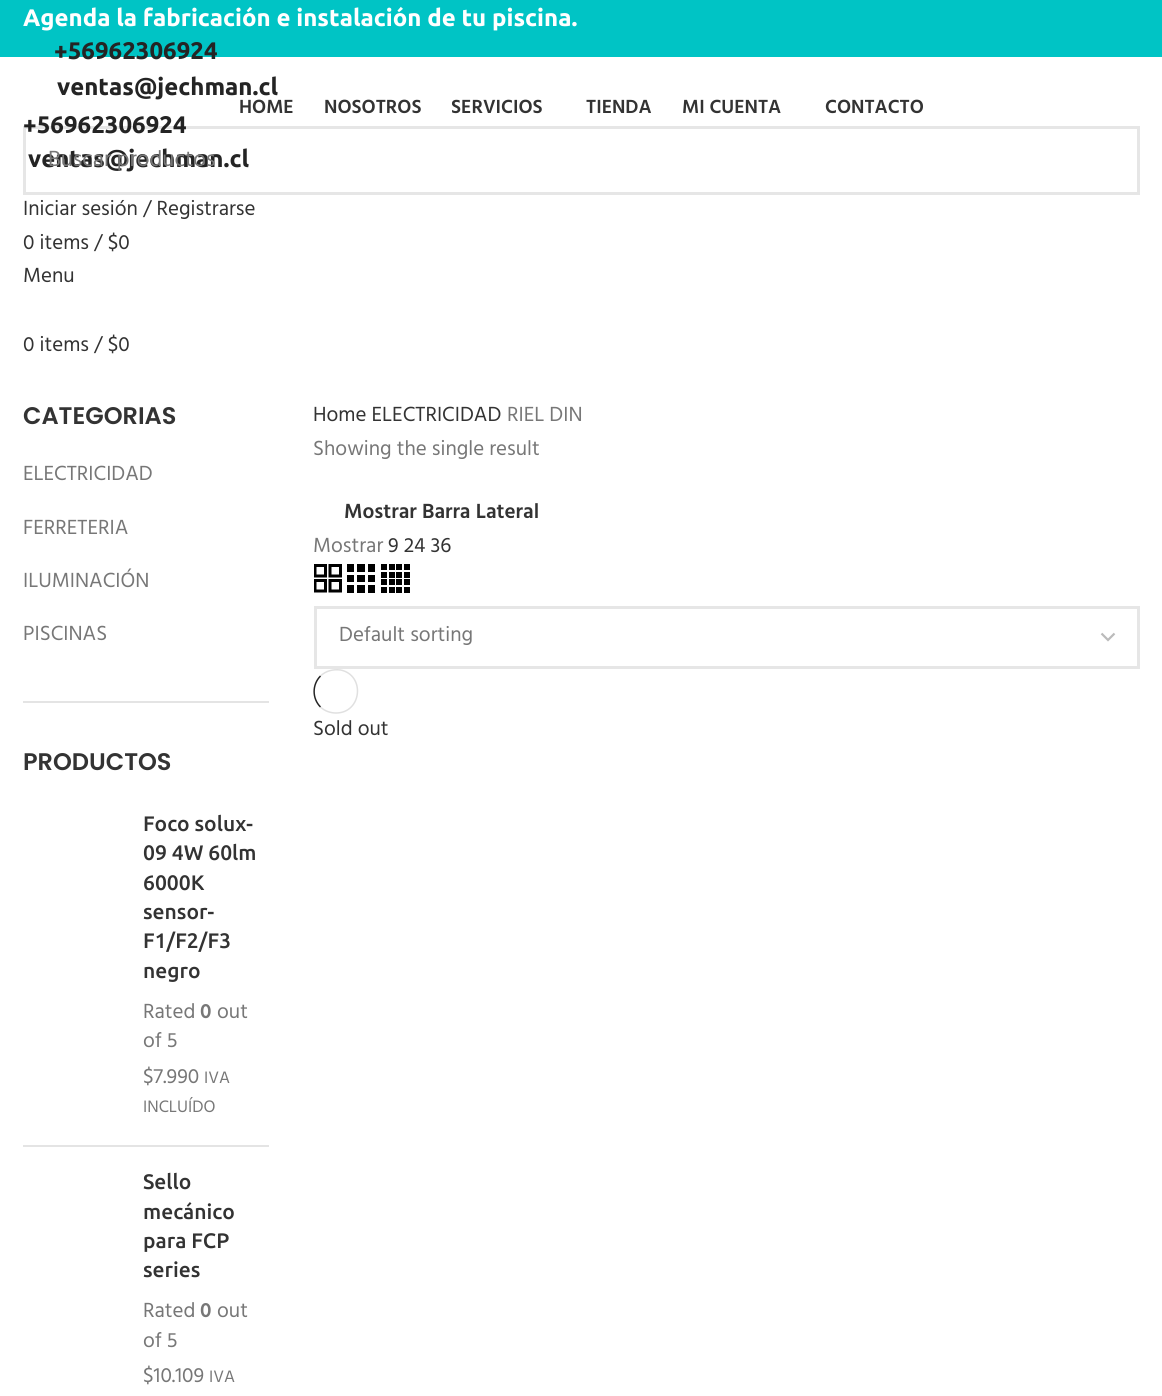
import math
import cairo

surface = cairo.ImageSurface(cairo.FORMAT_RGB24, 1162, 1396)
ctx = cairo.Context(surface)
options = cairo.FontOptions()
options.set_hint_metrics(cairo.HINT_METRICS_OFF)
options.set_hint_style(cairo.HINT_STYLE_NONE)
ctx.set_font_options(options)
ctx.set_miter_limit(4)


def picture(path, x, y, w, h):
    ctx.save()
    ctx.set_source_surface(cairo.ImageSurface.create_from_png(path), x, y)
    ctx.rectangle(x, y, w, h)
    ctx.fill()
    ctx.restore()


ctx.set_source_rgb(1, 1, 1)
ctx.paint()
ctx.set_source_rgb(0, 0.769, 0.773)
ctx.rectangle(0, 0, 1162, 57)
ctx.fill()
ctx.select_font_face("Ubuntu", cairo.FONT_SLANT_NORMAL, cairo.FONT_WEIGHT_BOLD)
ctx.set_font_size(24)
ctx.set_source_rgb(1, 1, 1)
ctx.move_to(23, 26)
ctx.show_text("Agenda la fabricación e instalación de tu piscina.")
ctx.set_source_rgb(0.141, 0.141, 0.141)
ctx.move_to(54, 59)
ctx.show_text("+56962306924")
ctx.move_to(57, 95)
ctx.show_text("ventas@jechman.cl")
ctx.move_to(23, 133)
ctx.show_text("+56962306924")
ctx.move_to(28, 167)
ctx.show_text("ventas@jechman.cl")
ctx.select_font_face("Hind SemiBold")
ctx.set_font_size(19.5)
ctx.set_source_rgb(0.2, 0.2, 0.2)
ctx.move_to(239, 113)
ctx.show_text("HOME")
ctx.move_to(324, 113)
ctx.show_text("NOSOTROS")
ctx.move_to(451, 113)
ctx.show_text("SERVICIOS")
ctx.move_to(586, 113)
ctx.show_text("TIENDA")
ctx.move_to(682, 113)
ctx.show_text("MI CUENTA")
ctx.move_to(825, 113)
ctx.show_text("CONTACTO")
ctx.rectangle(24.5, 127.5, 1114, 66)
ctx.set_source_rgba(0, 0, 0, 0.1)
ctx.set_line_width(3)
ctx.stroke()
ctx.select_font_face("Hind")
ctx.set_font_size(22.5)
ctx.set_source_rgb(0.467, 0.467, 0.467)
ctx.move_to(48, 166)
ctx.show_text("Buscar productos")
ctx.set_font_size(21)
ctx.set_source_rgb(0.2, 0.2, 0.2)
ctx.move_to(23, 215)
ctx.show_text("Iniciar sesión / Registrarse")
ctx.move_to(23, 249)
ctx.show_text("0 items / $0")
ctx.move_to(23, 282)
ctx.show_text("Menu")
ctx.move_to(23, 351)
ctx.show_text("0 items / $0")
ctx.set_source_rgb(0.894, 0.894, 0.894)
ctx.rectangle(23, 701, 246, 2)
ctx.fill()
ctx.select_font_face("Poppins SemiBold")
ctx.set_font_size(24)
ctx.set_source_rgb(0.2, 0.2, 0.2)
ctx.move_to(23, 424)
ctx.show_text("CATEGORIAS")
ctx.select_font_face("Hind")
ctx.set_font_size(21)
ctx.set_source_rgb(0.467, 0.467, 0.467)
ctx.move_to(23, 480)
ctx.show_text("ELECTRICIDAD")
ctx.move_to(23, 534)
ctx.show_text("FERRETERIA")
ctx.move_to(23, 587)
ctx.show_text("ILUMINACIÓN")
ctx.move_to(23, 640)
ctx.show_text("PISCINAS")
ctx.select_font_face("Poppins SemiBold")
ctx.set_font_size(24)
ctx.set_source_rgb(0.2, 0.2, 0.2)
ctx.move_to(23, 770)
ctx.show_text("PRODUCTOS")
ctx.set_source_rgb(0.894, 0.894, 0.894)
ctx.rectangle(23, 1145, 246, 2)
ctx.fill()
ctx.select_font_face("Ubuntu Medium")
ctx.set_font_size(21)
ctx.set_source_rgb(0.2, 0.2, 0.2)
ctx.move_to(143, 831)
ctx.show_text("Foco solux-")
ctx.move_to(143, 860)
ctx.show_text("09 4W 60lm")
ctx.move_to(143, 890)
ctx.show_text("6000K")
ctx.move_to(143, 919)
ctx.show_text("sensor-")
ctx.move_to(143, 948)
ctx.show_text("F1/F2/F3")
ctx.move_to(143, 978)
ctx.show_text("negro")
ctx.select_font_face("Hind")
ctx.set_source_rgb(0.467, 0.467, 0.467)
ctx.move_to(143, 1018)
ctx.show_text("Rated")
ctx.select_font_face("Hind SemiBold")
ctx.move_to(200, 1018)
ctx.show_text("0")
ctx.select_font_face("Hind")
ctx.move_to(217, 1018)
ctx.show_text("out")
ctx.move_to(143, 1047)
ctx.show_text("of 5")
ctx.move_to(143, 1083)
ctx.show_text("$7.990")
ctx.set_font_size(17)
ctx.move_to(204, 1083)
ctx.show_text("IVA")
ctx.move_to(143, 1112)
ctx.show_text("INCLUÍDO")
ctx.select_font_face("Ubuntu Medium")
ctx.set_font_size(21)
ctx.set_source_rgb(0.2, 0.2, 0.2)
ctx.move_to(143, 1189)
ctx.show_text("Sello")
ctx.move_to(143, 1219)
ctx.show_text("mecánico")
ctx.move_to(143, 1248)
ctx.show_text("para FCP")
ctx.move_to(143, 1277)
ctx.show_text("series")
ctx.select_font_face("Hind")
ctx.set_source_rgb(0.467, 0.467, 0.467)
ctx.move_to(143, 1317)
ctx.show_text("Rated")
ctx.select_font_face("Hind SemiBold")
ctx.move_to(200, 1317)
ctx.show_text("0")
ctx.select_font_face("Hind")
ctx.move_to(217, 1317)
ctx.show_text("out")
ctx.move_to(143, 1347)
ctx.show_text("of 5")
ctx.move_to(143, 1382)
ctx.show_text("$10.109")
ctx.set_font_size(17)
ctx.move_to(209, 1382)
ctx.show_text("IVA")
ctx.set_font_size(21)
ctx.set_source_rgb(0.2, 0.2, 0.2)
ctx.move_to(313, 421)
ctx.show_text("Home ELECTRICIDAD")
ctx.set_source_rgb(0.467, 0.467, 0.467)
ctx.move_to(507, 421)
ctx.show_text("RIEL DIN")
ctx.move_to(313, 455)
ctx.show_text("Showing the single result")
ctx.select_font_face("Hind SemiBold")
ctx.set_source_rgb(0.2, 0.2, 0.2)
ctx.move_to(344, 518)
ctx.show_text("Mostrar Barra Lateral")
ctx.select_font_face("Hind")
ctx.set_source_rgb(0.467, 0.467, 0.467)
ctx.move_to(313, 552)
ctx.show_text("Mostrar")
ctx.set_source_rgb(0.2, 0.2, 0.2)
ctx.move_to(388, 552)
ctx.show_text("9 24 36")
picture("img1.png", 314, 564, 28, 29)
picture("img2.png", 347, 564, 28, 29)
picture("img3.png", 381, 564, 29, 29)
ctx.new_path()
ctx.move_to(1101.5, 633.5)
ctx.line_to(1108, 640)
ctx.line_to(1114.5, 633.5)
ctx.set_source_rgb(0.733, 0.733, 0.733)
ctx.set_line_width(2.2)
ctx.stroke()
ctx.rectangle(315.5, 607.5, 823, 60)
ctx.set_source_rgb(0.902, 0.902, 0.902)
ctx.set_line_width(3)
ctx.stroke()
ctx.set_source_rgb(0.467, 0.467, 0.467)
ctx.move_to(339, 641)
ctx.show_text("Default sorting")
ctx.new_path()
ctx.move_to(320.5, 676)
ctx.curve_to(325.5, 671, 333, 669, 340.5, 670)
ctx.curve_to(365.5, 675, 362, 713, 336, 713)
ctx.curve_to(330.5, 713, 324.5, 711, 320.5, 707)
ctx.set_source_rgb(0.878, 0.878, 0.878)
ctx.set_line_width(1.5)
ctx.stroke()
ctx.new_path()
ctx.move_to(320.5, 707)
ctx.curve_to(312, 698.5, 312, 684.5, 320.5, 676)
ctx.set_source_rgb(0.141, 0.141, 0.141)
ctx.stroke()
ctx.set_source_rgb(0.2, 0.2, 0.2)
ctx.move_to(313, 735)
ctx.show_text("Sold out")
surface.write_to_png("page.png")
